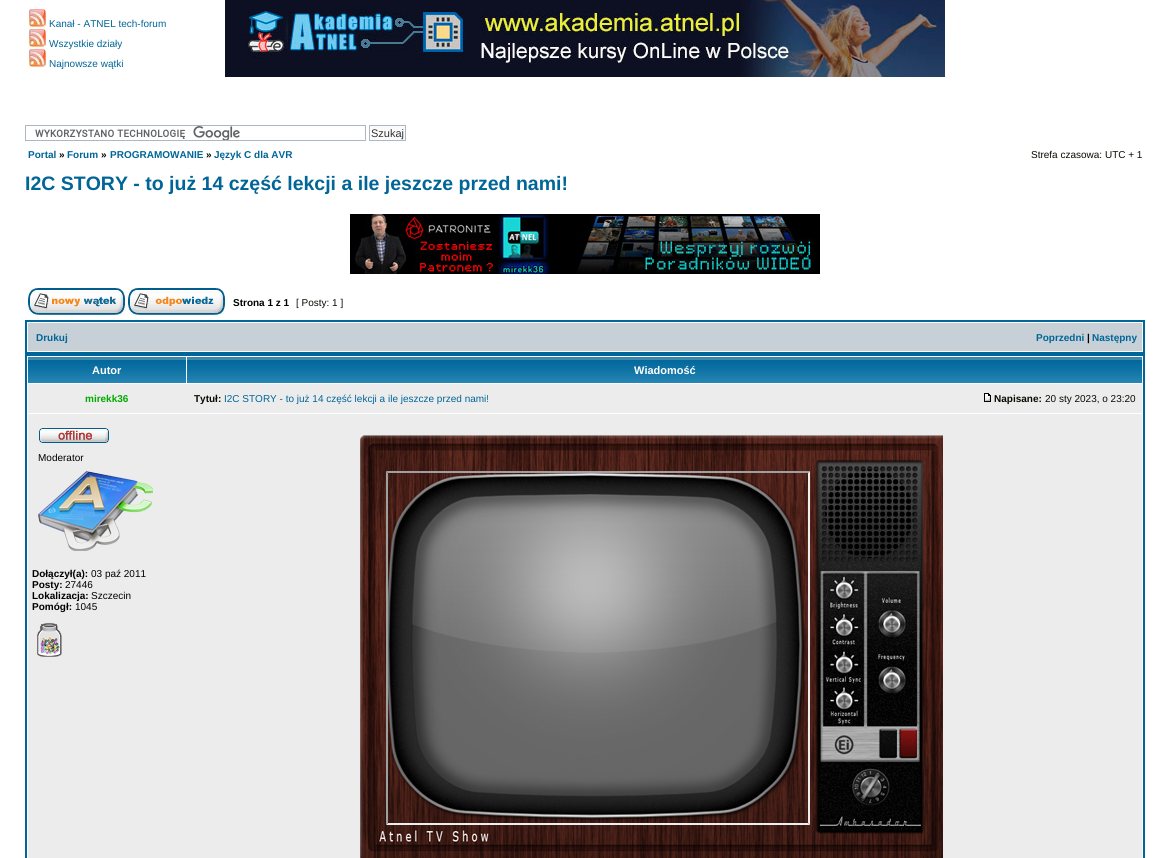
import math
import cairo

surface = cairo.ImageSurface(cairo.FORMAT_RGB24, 1170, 858)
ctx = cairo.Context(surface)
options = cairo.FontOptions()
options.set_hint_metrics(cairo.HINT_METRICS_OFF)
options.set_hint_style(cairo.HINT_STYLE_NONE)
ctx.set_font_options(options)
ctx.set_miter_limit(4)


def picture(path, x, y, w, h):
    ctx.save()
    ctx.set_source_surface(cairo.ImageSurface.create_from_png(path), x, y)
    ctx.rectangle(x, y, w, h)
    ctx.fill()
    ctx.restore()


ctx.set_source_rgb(1, 1, 1)
ctx.paint()
picture("img1.png", 29, 9, 17, 18)
ctx.select_font_face("Liberation Sans")
ctx.set_font_size(10)
ctx.set_source_rgb(0, 0.396, 0.592)
ctx.move_to(49, 27)
ctx.show_text("Kanał - ATNEL tech-forum")
picture("img1.png", 29, 29, 17, 18)
ctx.move_to(49, 47)
ctx.show_text("Wszystkie działy")
picture("img1.png", 29, 49, 17, 18)
ctx.move_to(49, 67)
ctx.show_text("Najnowsze wątki")
picture("img2.png", 225, 0, 720, 77)
picture("img3.png", 35, 126, 205, 14)
ctx.rectangle(25.5, 125.5, 340, 15)
ctx.set_source_rgb(0.663, 0.722, 0.761)
ctx.set_line_width(1)
ctx.stroke()
ctx.set_source_rgb(0.98, 0.98, 0.98)
ctx.rectangle(369.5, 125.5, 36, 15)
ctx.fill_preserve()
ctx.set_source_rgb(0.663, 0.722, 0.761)
ctx.stroke()
ctx.set_font_size(11)
ctx.set_source_rgb(0.2, 0.2, 0.2)
ctx.move_to(371, 137)
ctx.show_text("Szukaj")
ctx.select_font_face("Liberation Sans", cairo.FONT_SLANT_NORMAL, cairo.FONT_WEIGHT_BOLD)
ctx.set_font_size(10)
ctx.set_source_rgb(0, 0.396, 0.592)
ctx.move_to(28, 158)
ctx.show_text("Portal")
ctx.set_source_rgb(0, 0, 0)
ctx.move_to(59, 158)
ctx.show_text("»")
ctx.set_source_rgb(0, 0.396, 0.592)
ctx.move_to(67, 158)
ctx.show_text("Forum")
ctx.set_source_rgb(0, 0, 0)
ctx.move_to(101, 158)
ctx.show_text("»")
ctx.set_source_rgb(0, 0.396, 0.592)
ctx.move_to(110, 158)
ctx.show_text("PROGRAMOWANIE")
ctx.set_source_rgb(0, 0, 0)
ctx.move_to(206, 158)
ctx.show_text("»")
ctx.set_source_rgb(0, 0.396, 0.592)
ctx.move_to(214, 158)
ctx.show_text("Język C dla AVR")
ctx.select_font_face("Liberation Sans")
ctx.set_source_rgb(0.039, 0.043, 0.004)
ctx.move_to(1031, 158)
ctx.show_text("Strefa czasowa: UTC + 1")
ctx.select_font_face("Liberation Sans", cairo.FONT_SLANT_NORMAL, cairo.FONT_WEIGHT_BOLD)
ctx.set_font_size(19.5)
ctx.set_source_rgb(0, 0.396, 0.592)
ctx.move_to(25, 190)
ctx.show_text("I2C STORY - to już 14 część lekcji a ile jeszcze przed nami!")
picture("img4.png", 350, 214, 470, 60)
picture("img5.png", 28, 288, 97, 27)
picture("img6.png", 128, 288, 97, 27)
ctx.set_font_size(10)
ctx.set_source_rgb(0, 0, 0)
ctx.move_to(233, 306)
ctx.show_text("Strona 1 z 1")
ctx.select_font_face("Liberation Sans")
ctx.set_source_rgb(0.039, 0.043, 0.004)
ctx.move_to(296, 306)
ctx.show_text("[ Posty: 1 ]")
ctx.rectangle(26, 321, 1118, 32)
ctx.set_source_rgb(0, 0.4, 0.6)
ctx.set_line_width(2)
ctx.stroke()
ctx.set_source_rgb(0.78, 0.816, 0.843)
ctx.rectangle(28, 323, 1114, 28)
ctx.fill()
ctx.select_font_face("Liberation Sans", cairo.FONT_SLANT_NORMAL, cairo.FONT_WEIGHT_BOLD)
ctx.set_source_rgb(0, 0.396, 0.592)
ctx.move_to(36, 341)
ctx.show_text("Drukuj")
ctx.move_to(1036, 341)
ctx.show_text("Poprzedni")
ctx.set_source_rgb(0, 0, 0)
ctx.move_to(1087, 341)
ctx.show_text("|")
ctx.set_source_rgb(0, 0.396, 0.592)
ctx.move_to(1092, 341)
ctx.show_text("Następny")
ctx.rectangle(26, 355, 1118, 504)
ctx.set_source_rgb(0, 0.4, 0.6)
ctx.stroke()
picture("img7.png", 28, 357, 158, 26)
ctx.set_font_size(11)
ctx.set_source_rgb(1, 1, 1)
ctx.move_to(92, 374)
ctx.show_text("Autor")
picture("img8.png", 187, 357, 955, 26)
ctx.move_to(634, 374)
ctx.show_text("Wiadomość")
ctx.set_source_rgb(0.925, 0.925, 0.925)
ctx.rectangle(28, 384, 1114, 29)
ctx.fill()
ctx.set_font_size(10)
ctx.set_source_rgb(0, 0.667, 0)
ctx.move_to(85, 402)
ctx.show_text("mirekk36")
ctx.set_source_rgb(0.039, 0.043, 0.004)
ctx.move_to(194, 402)
ctx.show_text("Tytuł:")
ctx.select_font_face("Liberation Sans")
ctx.set_source_rgb(0, 0.396, 0.592)
ctx.move_to(224, 402)
ctx.show_text("I2C STORY - to już 14 część lekcji a ile jeszcze przed nami!")
picture("img9.png", 984, 393, 7, 9)
ctx.select_font_face("Liberation Sans", cairo.FONT_SLANT_NORMAL, cairo.FONT_WEIGHT_BOLD)
ctx.set_source_rgb(0.039, 0.043, 0.004)
ctx.move_to(994, 402)
ctx.show_text("Napisane:")
ctx.select_font_face("Liberation Sans")
ctx.move_to(1045, 402)
ctx.show_text("20 sty 2023, o 23:20")
ctx.set_source_rgb(0.925, 0.925, 0.925)
ctx.rectangle(28, 414, 1114, 444)
ctx.fill()
picture("img10.png", 39, 428, 70, 15)
ctx.set_source_rgb(0, 0, 0)
ctx.move_to(38, 461)
ctx.show_text("Moderator")
picture("img11.png", 38, 471, 115, 80)
ctx.select_font_face("Liberation Sans", cairo.FONT_SLANT_NORMAL, cairo.FONT_WEIGHT_BOLD)
ctx.move_to(32, 577)
ctx.show_text("Dołączył(a):")
ctx.select_font_face("Liberation Sans")
ctx.move_to(91, 577)
ctx.show_text("03 paź 2011")
ctx.select_font_face("Liberation Sans", cairo.FONT_SLANT_NORMAL, cairo.FONT_WEIGHT_BOLD)
ctx.move_to(32, 588)
ctx.show_text("Posty:")
ctx.select_font_face("Liberation Sans")
ctx.move_to(65, 588)
ctx.show_text("27446")
ctx.select_font_face("Liberation Sans", cairo.FONT_SLANT_NORMAL, cairo.FONT_WEIGHT_BOLD)
ctx.move_to(32, 599)
ctx.show_text("Lokalizacja:")
ctx.select_font_face("Liberation Sans")
ctx.move_to(91, 599)
ctx.show_text("Szczecin")
ctx.select_font_face("Liberation Sans", cairo.FONT_SLANT_NORMAL, cairo.FONT_WEIGHT_BOLD)
ctx.move_to(32, 610)
ctx.show_text("Pomógł:")
ctx.select_font_face("Liberation Sans")
ctx.move_to(75, 610)
ctx.show_text("1045")
picture("img12.png", 37, 623, 25, 34)
picture("img13.png", 360, 435, 583, 423)
ctx.set_source_rgb(0.624, 0.624, 0.624)
ctx.new_path()
ctx.move_to(386, 471)
ctx.line_to(810, 471)
ctx.line_to(808, 473)
ctx.line_to(388, 473)
ctx.close_path()
ctx.fill()
ctx.set_source_rgb(0.933, 0.933, 0.933)
ctx.new_path()
ctx.move_to(810, 471)
ctx.line_to(810, 825)
ctx.line_to(808, 823)
ctx.line_to(808, 473)
ctx.close_path()
ctx.fill()
ctx.new_path()
ctx.move_to(810, 825)
ctx.line_to(386, 825)
ctx.line_to(388, 823)
ctx.line_to(808, 823)
ctx.close_path()
ctx.fill()
ctx.set_source_rgb(0.624, 0.624, 0.624)
ctx.new_path()
ctx.move_to(386, 825)
ctx.line_to(386, 471)
ctx.line_to(388, 473)
ctx.line_to(388, 823)
ctx.close_path()
ctx.fill()
surface.write_to_png("page.png")
